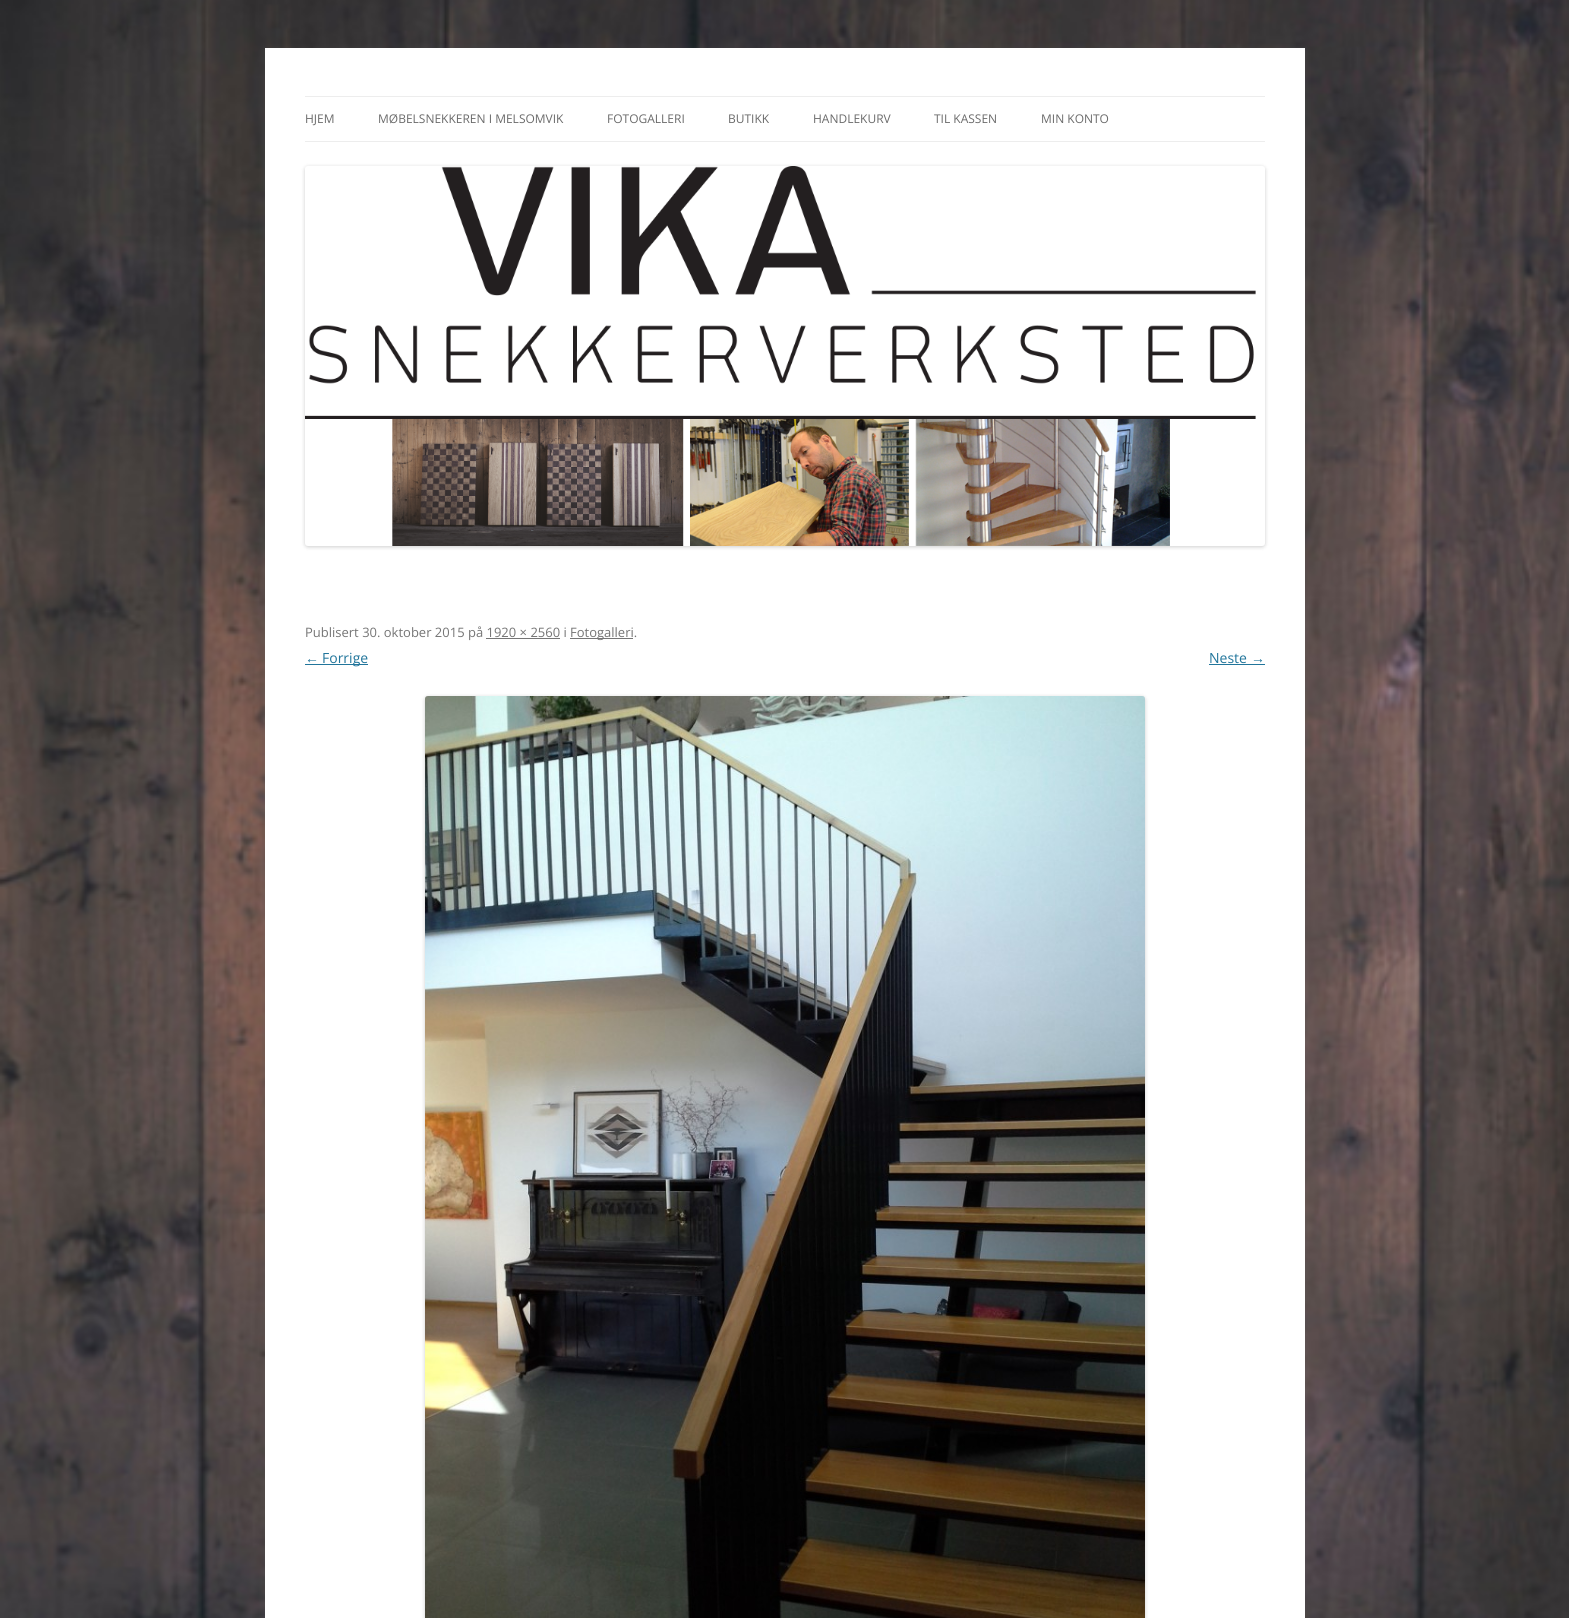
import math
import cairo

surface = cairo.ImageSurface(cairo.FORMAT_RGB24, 1569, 1618)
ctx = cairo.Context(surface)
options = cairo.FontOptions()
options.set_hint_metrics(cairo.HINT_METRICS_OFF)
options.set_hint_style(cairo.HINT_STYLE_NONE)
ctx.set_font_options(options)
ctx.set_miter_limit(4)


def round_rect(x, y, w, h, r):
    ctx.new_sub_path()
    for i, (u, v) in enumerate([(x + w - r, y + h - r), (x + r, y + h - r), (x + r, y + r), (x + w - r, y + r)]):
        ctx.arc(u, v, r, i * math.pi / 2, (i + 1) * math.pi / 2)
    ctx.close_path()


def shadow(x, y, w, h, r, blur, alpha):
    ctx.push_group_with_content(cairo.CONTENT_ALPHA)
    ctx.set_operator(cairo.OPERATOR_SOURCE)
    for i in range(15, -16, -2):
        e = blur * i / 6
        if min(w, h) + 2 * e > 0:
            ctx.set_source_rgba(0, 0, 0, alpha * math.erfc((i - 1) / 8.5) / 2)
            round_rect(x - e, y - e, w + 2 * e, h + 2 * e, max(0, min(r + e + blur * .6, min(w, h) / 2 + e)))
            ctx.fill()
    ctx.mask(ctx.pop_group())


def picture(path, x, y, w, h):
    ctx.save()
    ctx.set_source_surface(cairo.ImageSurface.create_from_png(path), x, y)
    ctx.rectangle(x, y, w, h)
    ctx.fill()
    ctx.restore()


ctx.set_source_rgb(1, 1, 1)
ctx.paint()
picture("img1.png", 0, 0, 1569, 1618)
ctx.set_source_rgb(0.392, 0.392, 0.392)
shadow(265, 50, 1040, 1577, 0, 3, 0.3)
ctx.set_source_rgb(1, 1, 1)
ctx.rectangle(265, 48, 1040, 1570)
ctx.fill()
ctx.set_source_rgb(0.929, 0.929, 0.929)
ctx.rectangle(305, 96, 960, 1)
ctx.fill()
ctx.rectangle(305, 141, 960, 1)
ctx.fill()
ctx.select_font_face("Open Sans")
ctx.set_font_size(12)
ctx.set_source_rgb(0.416, 0.416, 0.416)
ctx.move_to(305, 123)
ctx.show_text("HJEM")
ctx.move_to(378, 123)
ctx.show_text("MØBELSNEKKEREN I MELSOMVIK")
ctx.move_to(607, 123)
ctx.show_text("FOTOGALLERI")
ctx.move_to(728, 123)
ctx.show_text("BUTIKK")
ctx.move_to(813, 123)
ctx.show_text("HANDLEKURV")
ctx.move_to(934, 123)
ctx.show_text("TIL KASSEN")
ctx.move_to(1041, 123)
ctx.show_text("MIN KONTO")
ctx.set_source_rgb(0, 0, 0)
shadow(305, 167, 960, 380, 3, 2, 0.2)
picture("img2.png", 305, 166, 960, 380)
ctx.set_font_size(13)
ctx.set_source_rgb(0.459, 0.459, 0.459)
ctx.move_to(305, 637)
ctx.show_text("Publisert 30. oktober 2015 på 1920 × 2560 i")
ctx.rectangle(570, 638, 63, 1)
ctx.fill()
ctx.move_to(570, 637)
ctx.show_text("Fotogalleri.")
ctx.rectangle(486, 638, 74, 1)
ctx.fill()
ctx.select_font_face("Liberation Sans")
ctx.set_font_size(14)
ctx.set_source_rgb(0.129, 0.459, 0.608)
ctx.move_to(305, 663)
ctx.show_text("←")
ctx.rectangle(305, 664, 63, 1)
ctx.fill()
ctx.select_font_face("Open Sans")
ctx.move_to(322, 663)
ctx.show_text("Forrige")
ctx.move_to(1209, 663)
ctx.show_text("Neste")
ctx.select_font_face("Liberation Sans")
ctx.move_to(1251, 663)
ctx.show_text("→")
ctx.rectangle(1209, 664, 56, 1)
ctx.fill()
ctx.set_source_rgb(0, 0, 0)
shadow(425, 697, 720, 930, 3, 2, 0.2)
picture("img3.png", 425, 696, 720, 922)
surface.write_to_png("page.png")
